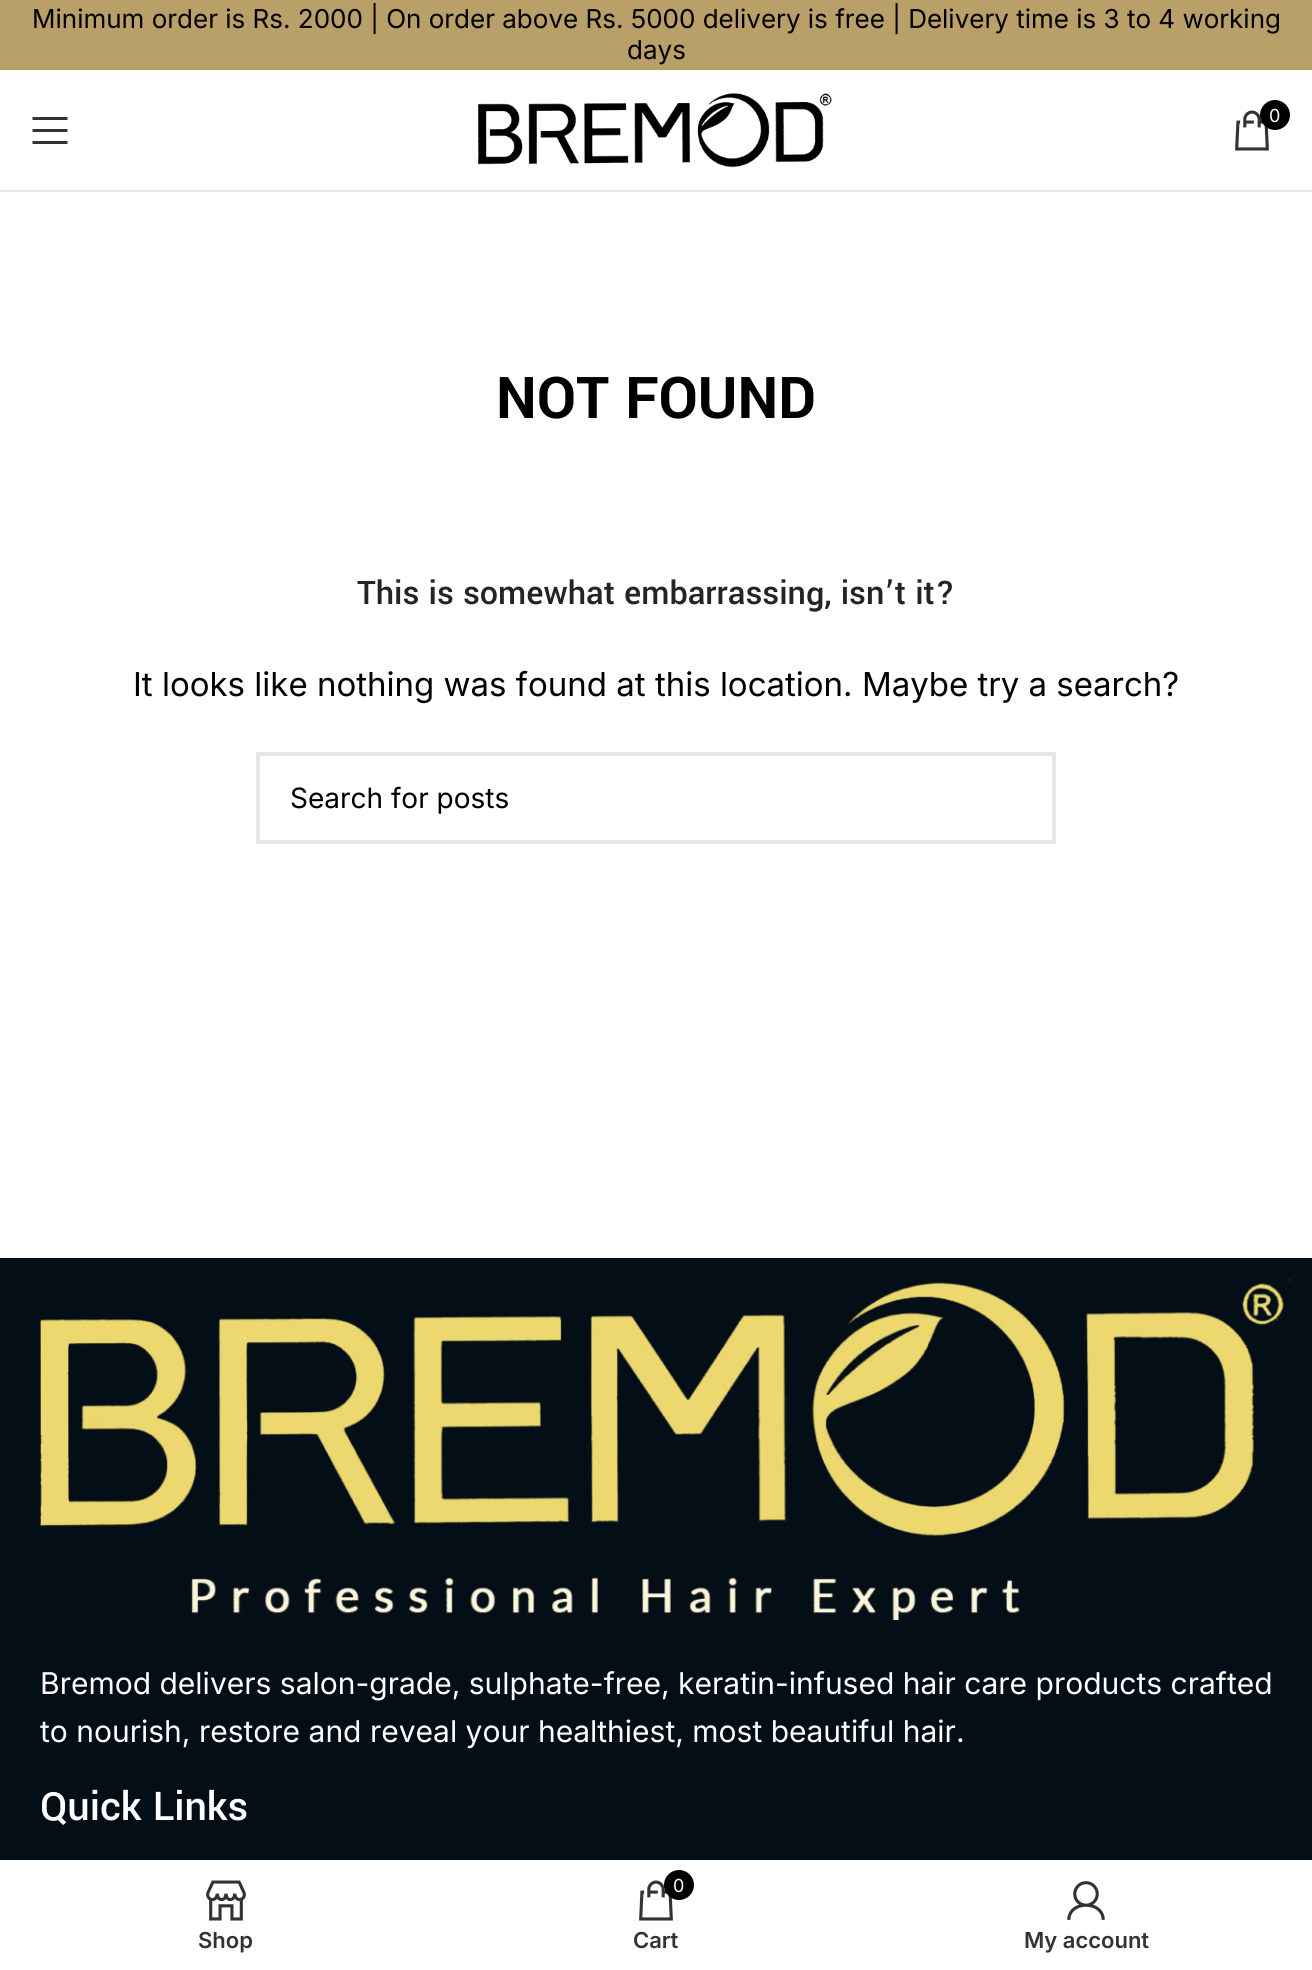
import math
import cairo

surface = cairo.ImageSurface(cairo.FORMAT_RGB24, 1312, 1970)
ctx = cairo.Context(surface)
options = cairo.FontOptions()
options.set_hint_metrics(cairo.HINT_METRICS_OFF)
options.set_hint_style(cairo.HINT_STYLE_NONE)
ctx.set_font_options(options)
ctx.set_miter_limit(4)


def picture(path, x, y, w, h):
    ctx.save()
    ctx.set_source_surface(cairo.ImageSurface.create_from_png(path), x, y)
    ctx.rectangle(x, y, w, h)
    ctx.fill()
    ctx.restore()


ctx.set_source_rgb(1, 1, 1)
ctx.paint()
ctx.set_source_rgb(0.725, 0.624, 0.408)
ctx.rectangle(0, 0, 1312, 70)
ctx.fill()
ctx.select_font_face("Inter")
ctx.set_font_size(26)
ctx.set_source_rgb(0, 0, 0)
ctx.move_to(32, 28)
ctx.show_text("Minimum order is Rs. 2000 | On order above Rs. 5000 delivery is free | Delivery time is 3 to 4 working")
ctx.move_to(627, 59)
ctx.show_text("days")
ctx.set_source_rgb(0.91, 0.91, 0.91)
ctx.rectangle(0, 190, 1312, 2)
ctx.fill()
picture("img1.png", 478, 92, 356, 76)
picture("img2.png", 1235, 110, 34, 41)
ctx.set_source_rgb(0, 0, 0)
ctx.arc(1275, 115, 15, 0, 2 * math.pi)
ctx.fill()
ctx.set_font_size(18)
ctx.set_source_rgb(1, 1, 1)
ctx.move_to(1269, 122)
ctx.show_text("0")
ctx.set_source_rgb(0.2, 0.2, 0.2)
ctx.new_path()
ctx.move_to(32.5, 120)
ctx.line_to(67.5, 120)
ctx.line_to(67.5, 117)
ctx.line_to(32.5, 117)
ctx.close_path()
ctx.move_to(32.5, 132)
ctx.line_to(67.5, 132)
ctx.line_to(67.5, 129)
ctx.line_to(32.5, 129)
ctx.close_path()
ctx.move_to(32.5, 144)
ctx.line_to(67.5, 144)
ctx.line_to(67.5, 141)
ctx.line_to(32.5, 141)
ctx.close_path()
ctx.fill()
ctx.select_font_face("Yantramanav", cairo.FONT_SLANT_NORMAL, cairo.FONT_WEIGHT_BOLD)
ctx.set_font_size(64)
ctx.set_source_rgb(0, 0, 0)
ctx.move_to(496, 418)
ctx.show_text("NOT FOUND")
ctx.select_font_face("Yantramanav Medium")
ctx.set_font_size(36)
ctx.set_source_rgb(0.141, 0.141, 0.141)
ctx.move_to(357, 604)
ctx.show_text("This is somewhat embarrassing, isn’t it?")
ctx.select_font_face("Inter")
ctx.set_font_size(33)
ctx.set_source_rgb(0, 0, 0)
ctx.move_to(133, 696)
ctx.show_text("It looks like nothing was found at this location. Maybe try a search?")
ctx.rectangle(258, 754, 796, 88)
ctx.set_source_rgb(0.902, 0.902, 0.902)
ctx.set_line_width(4)
ctx.stroke()
ctx.set_font_size(28)
ctx.set_source_rgb(0, 0, 0)
ctx.move_to(290, 808)
ctx.show_text("Search for posts")
ctx.set_source_rgb(0.016, 0.055, 0.09)
ctx.rectangle(0, 1258, 1312, 602)
ctx.fill()
picture("img3.png", 40, 1279, 1251, 341)
ctx.set_font_size(30)
ctx.set_source_rgb(1, 1, 1)
ctx.move_to(40, 1694)
ctx.show_text("Bremod delivers salon-grade, sulphate-free, keratin-infused hair care products crafted")
ctx.move_to(40, 1742)
ctx.show_text("to nourish, restore and reveal your healthiest, most beautiful hair.")
ctx.select_font_face("Yantramanav Medium")
ctx.set_font_size(44)
ctx.move_to(40, 1820)
ctx.show_text("Quick Links")
picture("img4.png", 206, 1880, 40, 41)
ctx.select_font_face("Inter SemiBold")
ctx.set_font_size(22)
ctx.set_source_rgb(0.2, 0.2, 0.2)
ctx.move_to(198, 1948)
ctx.show_text("Shop")
picture("img2.png", 639, 1880, 34, 41)
ctx.set_source_rgb(0, 0, 0)
ctx.arc(679, 1885, 15, 0, 2 * math.pi)
ctx.fill()
ctx.select_font_face("Inter")
ctx.set_font_size(18)
ctx.set_source_rgb(1, 1, 1)
ctx.move_to(673, 1892)
ctx.show_text("0")
ctx.select_font_face("Inter SemiBold")
ctx.set_font_size(22)
ctx.set_source_rgb(0.2, 0.2, 0.2)
ctx.move_to(633, 1948)
ctx.show_text("Cart")
picture("img5.png", 1067, 1881, 38, 39)
ctx.move_to(1024, 1948)
ctx.show_text("My account")
surface.write_to_png("page.png")
